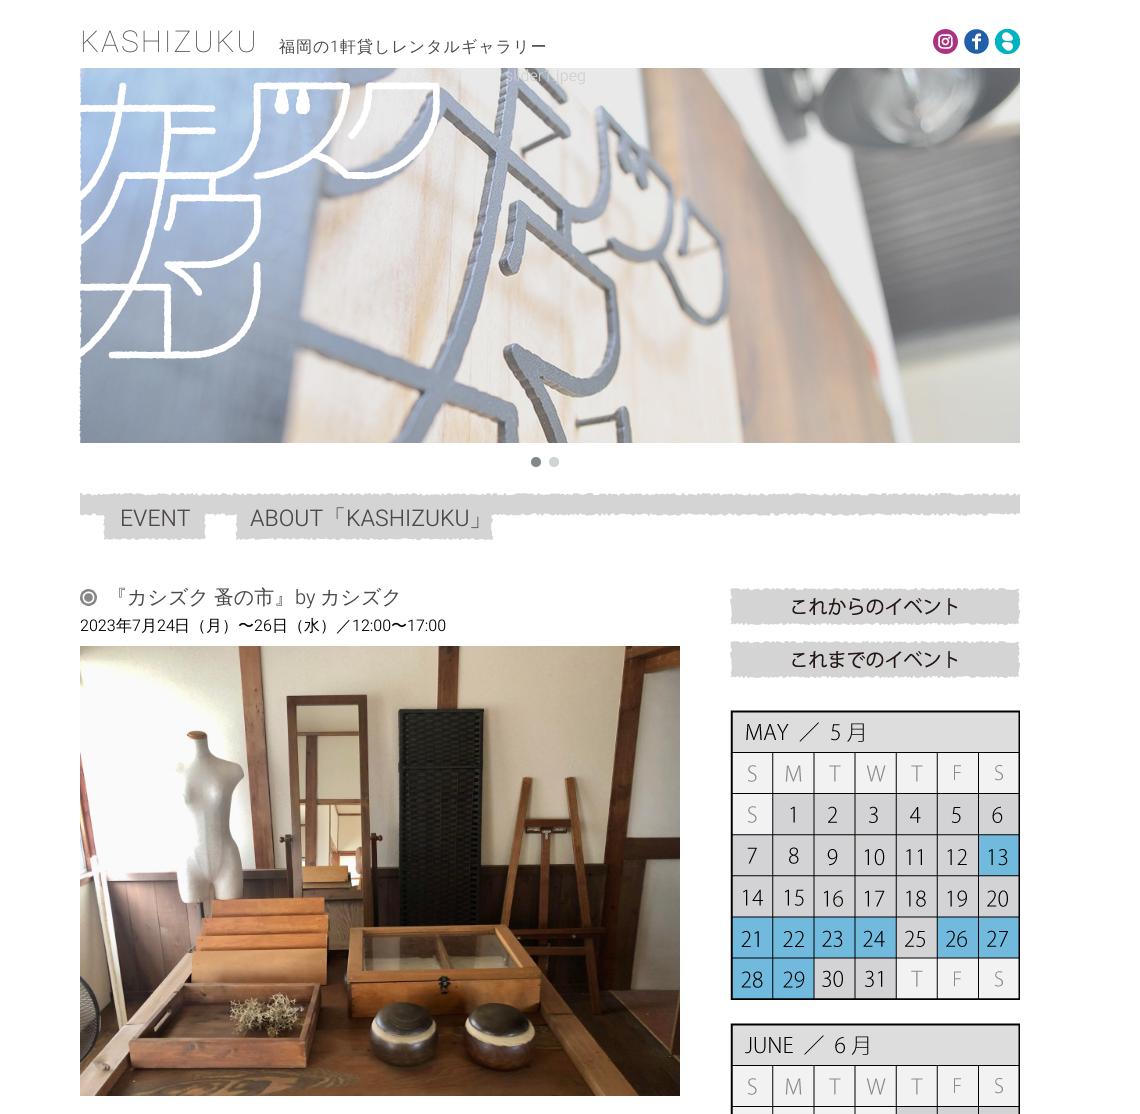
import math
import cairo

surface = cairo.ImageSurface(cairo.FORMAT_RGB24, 1140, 1114)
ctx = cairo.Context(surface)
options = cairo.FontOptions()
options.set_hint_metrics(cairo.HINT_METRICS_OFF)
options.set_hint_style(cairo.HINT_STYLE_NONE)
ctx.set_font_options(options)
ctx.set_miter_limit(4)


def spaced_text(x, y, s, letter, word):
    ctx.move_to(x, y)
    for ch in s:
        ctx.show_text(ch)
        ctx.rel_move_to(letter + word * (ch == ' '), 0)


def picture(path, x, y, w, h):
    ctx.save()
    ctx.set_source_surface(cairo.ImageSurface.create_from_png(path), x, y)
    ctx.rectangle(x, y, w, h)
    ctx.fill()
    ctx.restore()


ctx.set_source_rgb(1, 1, 1)
ctx.paint()
ctx.select_font_face("Heebo Thin")
ctx.set_font_size(30)
ctx.set_source_rgb(0.298, 0.286, 0.282)
spaced_text(80, 52, "KASHIZUKU", 2, 0)
ctx.select_font_face("WenQuanYi Zen Hei Medium")
ctx.set_font_size(16)
spaced_text(279, 52, "福岡の", 1, 0)
ctx.select_font_face("Heebo Light")
spaced_text(330, 52, "1", 1, 0)
ctx.select_font_face("WenQuanYi Zen Hei Medium")
spaced_text(340, 52, "軒貸しレンタルギャラリー", 1, 0)
picture("img1.png", 933, 29, 25, 25)
picture("img2.png", 964, 29, 25, 25)
picture("img3.png", 995, 29, 25, 25)
picture("img5.png", 79, 68, 941, 375)
picture("img4.png", 70, 68, 370, 375)
ctx.select_font_face("Heebo Light")
ctx.set_source_rgb(0.8, 0.808, 0.824)
ctx.move_to(505, 81)
ctx.show_text("slider1.jpeg")
ctx.set_source_rgb(0.506, 0.537, 0.553)
ctx.new_path()
ctx.arc(536, 462, 5, 0, 2 * math.pi)
ctx.fill()
ctx.set_source_rgb(0.808, 0.827, 0.835)
ctx.arc(554, 462, 5, 0, 2 * math.pi)
ctx.fill()
picture("img6.png", 80, 493, 940, 48)
ctx.set_font_size(23)
ctx.set_source_rgb(0.298, 0.286, 0.282)
ctx.move_to(120, 526)
ctx.show_text("EVENT")
ctx.move_to(250, 526)
ctx.show_text("ABOUT")
ctx.select_font_face("WenQuanYi Zen Hei Medium")
ctx.move_to(323, 526)
ctx.show_text("「")
ctx.select_font_face("Heebo Light")
ctx.move_to(346, 526)
ctx.show_text("KASHIZUKU")
ctx.select_font_face("WenQuanYi Zen Hei Medium")
ctx.move_to(469, 526)
ctx.show_text("」")
picture("img7.png", 80, 589, 17, 17)
ctx.set_font_size(20)
spaced_text(107, 604, "『カシズク 蚤の市』", 0, -1)
ctx.select_font_face("Heebo Light")
ctx.move_to(295, 604)
ctx.show_text("by")
ctx.select_font_face("WenQuanYi Zen Hei Medium")
ctx.move_to(320, 604)
ctx.show_text("カシズク")
ctx.select_font_face("Heebo Light")
ctx.set_font_size(16)
ctx.set_source_rgb(0, 0, 0)
ctx.move_to(80, 631)
ctx.show_text("2023")
ctx.select_font_face("WenQuanYi Zen Hei Medium")
ctx.move_to(116, 631)
ctx.show_text("年")
ctx.select_font_face("Heebo Light")
ctx.move_to(132, 631)
ctx.show_text("7")
ctx.select_font_face("WenQuanYi Zen Hei Medium")
ctx.move_to(141, 631)
ctx.show_text("月")
ctx.select_font_face("Heebo Light")
ctx.move_to(157, 631)
ctx.show_text("24")
ctx.select_font_face("WenQuanYi Zen Hei Medium")
ctx.move_to(174, 631)
ctx.show_text("日（月）〜")
ctx.select_font_face("Heebo Light")
ctx.move_to(254, 631)
ctx.show_text("26")
ctx.select_font_face("WenQuanYi Zen Hei Medium")
ctx.move_to(272, 631)
ctx.show_text("日（水）／")
ctx.select_font_face("Heebo Light")
ctx.move_to(352, 631)
ctx.show_text("12:00")
ctx.select_font_face("WenQuanYi Zen Hei Medium")
ctx.move_to(391, 631)
ctx.show_text("〜")
ctx.select_font_face("Heebo Light")
ctx.move_to(407, 631)
ctx.show_text("17:00")
picture("img8.png", 80, 646, 600, 450)
picture("img9.png", 730, 588, 290, 37)
picture("img10.png", 730, 641, 290, 37)
picture("img11.png", 730, 710, 290, 290)
picture("img12.png", 730, 1023, 290, 91)
surface.write_to_png("page.png")
